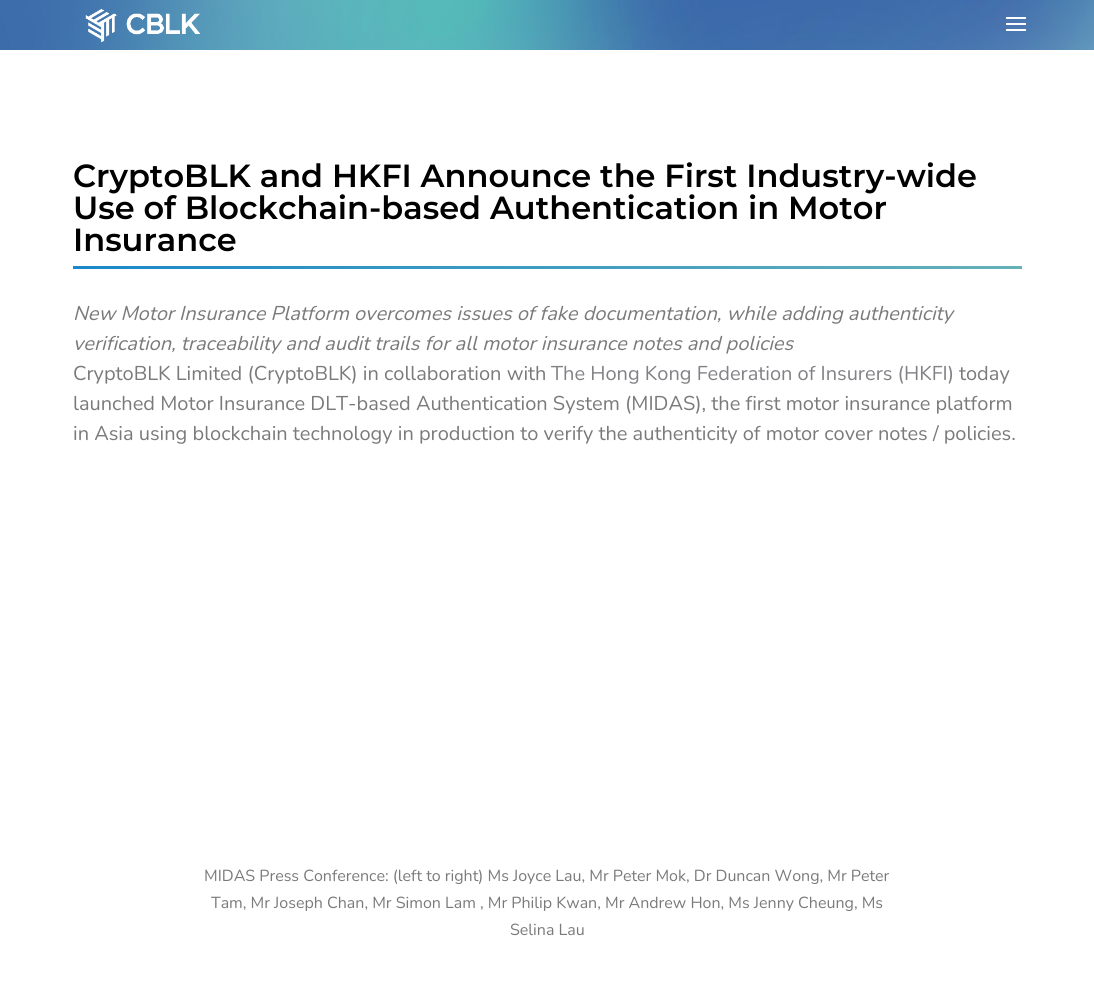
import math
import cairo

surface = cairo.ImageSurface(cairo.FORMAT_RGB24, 1094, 1001)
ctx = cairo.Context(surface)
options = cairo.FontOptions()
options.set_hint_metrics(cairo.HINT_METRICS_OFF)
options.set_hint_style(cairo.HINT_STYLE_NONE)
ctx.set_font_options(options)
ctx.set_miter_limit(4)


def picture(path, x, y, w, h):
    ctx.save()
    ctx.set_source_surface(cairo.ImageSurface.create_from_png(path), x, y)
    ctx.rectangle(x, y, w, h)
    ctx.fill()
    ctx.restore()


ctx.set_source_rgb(1, 1, 1)
ctx.paint()
picture("img1.png", 0, 0, 1094, 50)
picture("img2.png", 85, 8, 115, 35)
ctx.set_source_rgb(1, 1, 1)
ctx.rectangle(1006, 23, 20, 2)
ctx.fill()
ctx.rectangle(1006, 17, 20, 2)
ctx.fill()
ctx.rectangle(1006, 29, 20, 2)
ctx.fill()
ctx.select_font_face("Montserrat SemiBold")
ctx.set_font_size(32)
ctx.set_source_rgb(0, 0, 0)
ctx.move_to(73, 187)
ctx.show_text("CryptoBLK and HKFI Announce the First Industry-wide")
ctx.move_to(73, 219)
ctx.show_text("Use of Blockchain-based Authentication in Motor")
ctx.move_to(73, 251)
ctx.show_text("Insurance")
gradient = cairo.LinearGradient(1022, 267, 73, 268)
gradient.add_color_stop_rgba(0, 0.392, 0.694, 0.722, 1)
gradient.add_color_stop_rgba(1, 0.102, 0.533, 0.788, 1)
ctx.set_source(gradient)
ctx.rectangle(73, 266, 949, 3)
ctx.fill()
ctx.select_font_face("Nunito", cairo.FONT_SLANT_ITALIC)
ctx.set_font_size(20)
ctx.set_source_rgb(0.478, 0.478, 0.478)
ctx.move_to(73, 320)
ctx.show_text("New Motor Insurance Platform overcomes issues of fake documentation, while adding authenticity")
ctx.move_to(73, 350)
ctx.show_text("verification, traceability and audit trails for all motor insurance notes and policies")
ctx.select_font_face("Nunito")
ctx.move_to(73, 380)
ctx.show_text("CryptoBLK Limited (CryptoBLK) in collaboration with")
ctx.set_source_rgb(0.506, 0.506, 0.525)
ctx.move_to(551, 380)
ctx.show_text("The Hong Kong Federation of Insurers (HKFI)")
ctx.set_source_rgb(0.478, 0.478, 0.478)
ctx.move_to(959, 380)
ctx.show_text("today")
ctx.move_to(73, 410)
ctx.show_text("launched Motor Insurance DLT-based Authentication System (MIDAS), the first motor insurance platform")
ctx.move_to(73, 440)
ctx.show_text("in Asia using blockchain technology in production to verify the authenticity of motor cover notes / policies.")
ctx.set_font_size(16)
ctx.move_to(204, 881)
ctx.show_text("MIDAS Press Conference: (left to right) Ms Joyce Lau, Mr Peter Mok, Dr Duncan Wong, Mr Peter")
ctx.move_to(211, 908)
ctx.show_text("Tam, Mr Joseph Chan, Mr Simon Lam , Mr Philip Kwan, Mr Andrew Hon, Ms Jenny Cheung, Ms")
ctx.move_to(510, 935)
ctx.show_text("Selina Lau")
surface.write_to_png("page.png")
